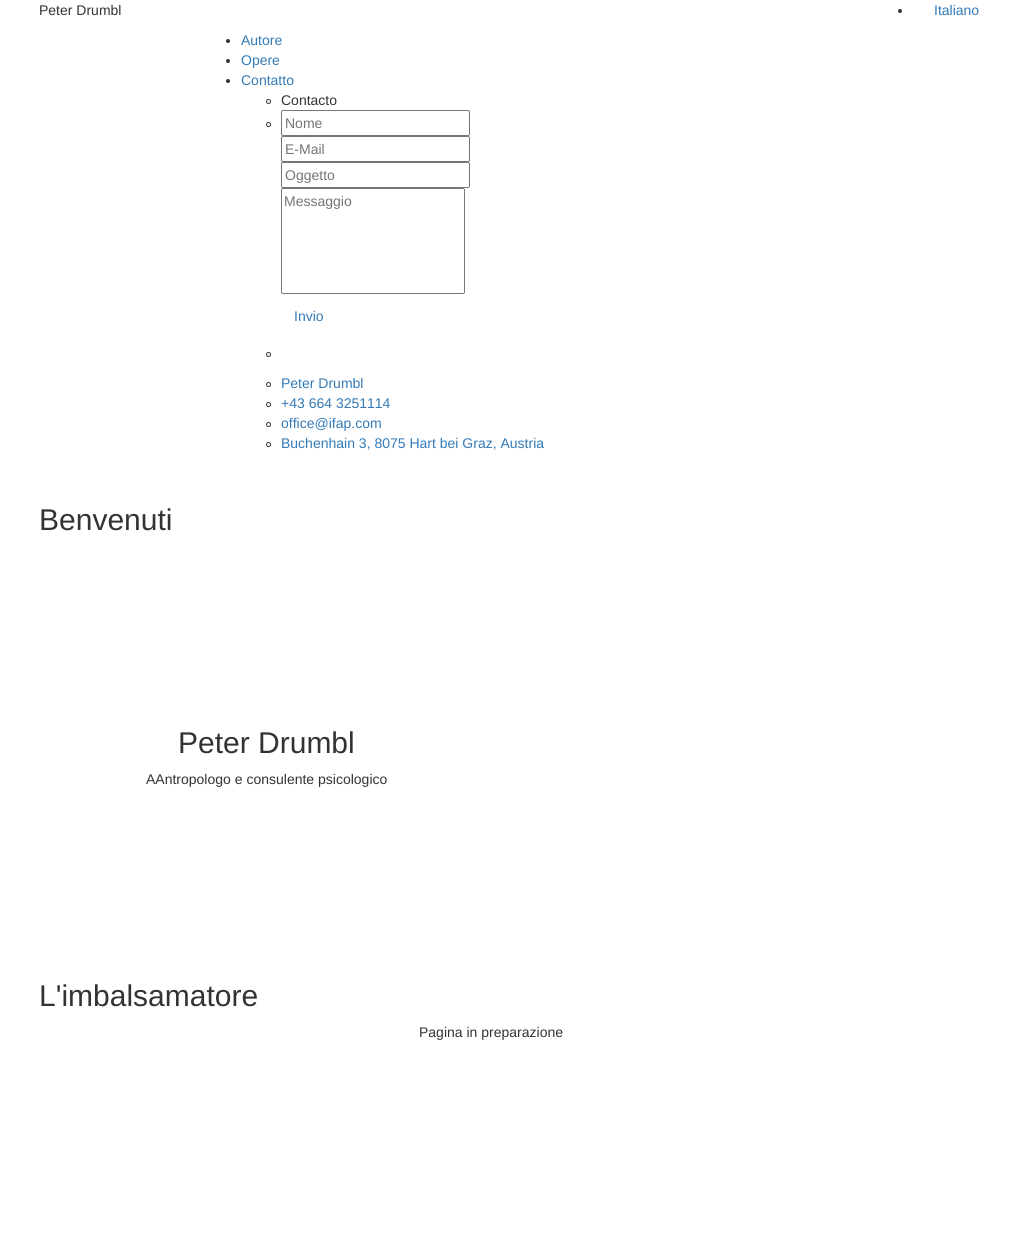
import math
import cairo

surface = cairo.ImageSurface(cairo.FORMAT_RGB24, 1018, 1258)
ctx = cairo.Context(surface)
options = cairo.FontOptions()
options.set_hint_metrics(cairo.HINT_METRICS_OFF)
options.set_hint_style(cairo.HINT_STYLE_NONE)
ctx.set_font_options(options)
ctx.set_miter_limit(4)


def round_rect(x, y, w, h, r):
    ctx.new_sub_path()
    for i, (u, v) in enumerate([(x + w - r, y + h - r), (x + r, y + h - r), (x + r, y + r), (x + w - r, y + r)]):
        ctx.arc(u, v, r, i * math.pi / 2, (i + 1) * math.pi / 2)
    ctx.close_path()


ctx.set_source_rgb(1, 1, 1)
ctx.paint()
ctx.select_font_face("Liberation Sans")
ctx.set_font_size(14)
ctx.set_source_rgb(0.2, 0.2, 0.2)
ctx.move_to(39, 15)
ctx.show_text("Peter Drumbl")
ctx.new_path()
ctx.arc(900, 11, 2, 0, 2 * math.pi)
ctx.fill()
ctx.set_source_rgb(0.2, 0.478, 0.718)
ctx.move_to(934, 15)
ctx.show_text("Italiano")
ctx.set_source_rgb(0.2, 0.2, 0.2)
ctx.new_path()
ctx.arc(228, 41, 2, 0, 2 * math.pi)
ctx.fill()
ctx.set_source_rgb(0.2, 0.478, 0.718)
ctx.move_to(241, 45)
ctx.show_text("Autore")
ctx.set_source_rgb(0.2, 0.2, 0.2)
ctx.new_path()
ctx.arc(228, 61, 2, 0, 2 * math.pi)
ctx.fill()
ctx.set_source_rgb(0.2, 0.478, 0.718)
ctx.move_to(241, 65)
ctx.show_text("Opere")
ctx.set_source_rgb(0.2, 0.2, 0.2)
ctx.new_path()
ctx.arc(228, 81, 2, 0, 2 * math.pi)
ctx.fill()
ctx.set_source_rgb(0.2, 0.478, 0.718)
ctx.move_to(241, 85)
ctx.show_text("Contatto")
ctx.new_path()
ctx.arc(268.5, 101.5, 2, 0, 2 * math.pi)
ctx.set_source_rgb(0.2, 0.2, 0.2)
ctx.set_line_width(1)
ctx.stroke()
ctx.move_to(281, 105)
ctx.show_text("Contacto")
ctx.new_path()
ctx.arc(268.5, 124.5, 2, 0, 2 * math.pi)
ctx.stroke()
round_rect(281.5, 110.5, 188, 25, 1.5)
ctx.set_source_rgb(0.463, 0.463, 0.463)
ctx.stroke()
ctx.set_source_rgb(0.459, 0.459, 0.459)
ctx.move_to(285, 128)
ctx.show_text("Nome")
round_rect(281.5, 136.5, 188, 25, 1.5)
ctx.set_source_rgb(0.463, 0.463, 0.463)
ctx.stroke()
ctx.set_source_rgb(0.459, 0.459, 0.459)
ctx.move_to(285, 154)
ctx.show_text("E-Mail")
round_rect(281.5, 162.5, 188, 25, 1.5)
ctx.set_source_rgb(0.463, 0.463, 0.463)
ctx.stroke()
ctx.set_source_rgb(0.459, 0.459, 0.459)
ctx.move_to(285, 180)
ctx.show_text("Oggetto")
round_rect(281.5, 188.5, 183, 105, 1.5)
ctx.set_source_rgb(0.463, 0.463, 0.463)
ctx.stroke()
ctx.set_source_rgb(0.459, 0.459, 0.459)
ctx.move_to(284, 206)
ctx.show_text("Messaggio")
ctx.set_source_rgb(0.2, 0.478, 0.718)
ctx.move_to(294, 321)
ctx.show_text("Invio")
ctx.new_path()
ctx.arc(268.5, 354.5, 2, 0, 2 * math.pi)
ctx.set_source_rgb(0.2, 0.2, 0.2)
ctx.stroke()
ctx.arc(268.5, 384.5, 2, 0, 2 * math.pi)
ctx.stroke()
ctx.set_source_rgb(0.2, 0.478, 0.718)
ctx.move_to(281, 388)
ctx.show_text("Peter Drumbl")
ctx.new_path()
ctx.arc(268.5, 404.5, 2, 0, 2 * math.pi)
ctx.set_source_rgb(0.2, 0.2, 0.2)
ctx.stroke()
ctx.set_source_rgb(0.2, 0.478, 0.718)
ctx.move_to(281, 408)
ctx.show_text("+43 664 3251114")
ctx.new_path()
ctx.arc(268.5, 424.5, 2, 0, 2 * math.pi)
ctx.set_source_rgb(0.2, 0.2, 0.2)
ctx.stroke()
ctx.set_source_rgb(0.2, 0.478, 0.718)
ctx.move_to(281, 428)
ctx.show_text("office@ifap.com")
ctx.new_path()
ctx.arc(268.5, 444.5, 2, 0, 2 * math.pi)
ctx.set_source_rgb(0.2, 0.2, 0.2)
ctx.stroke()
ctx.set_source_rgb(0.2, 0.478, 0.718)
ctx.move_to(281, 448)
ctx.show_text("Buchenhain 3, 8075 Hart bei Graz, Austria")
ctx.set_font_size(30)
ctx.set_source_rgb(0.2, 0.2, 0.2)
ctx.move_to(39, 530)
ctx.show_text("Benvenuti")
ctx.move_to(178, 753)
ctx.show_text("Peter Drumbl")
ctx.set_font_size(14)
ctx.move_to(146, 784)
ctx.show_text("AAntropologo e consulente psicologico")
ctx.set_font_size(30)
ctx.move_to(39, 1006)
ctx.show_text("L'imbalsamatore")
ctx.set_font_size(14)
ctx.move_to(419, 1037)
ctx.show_text("Pagina in preparazione")
surface.write_to_png("page.png")
